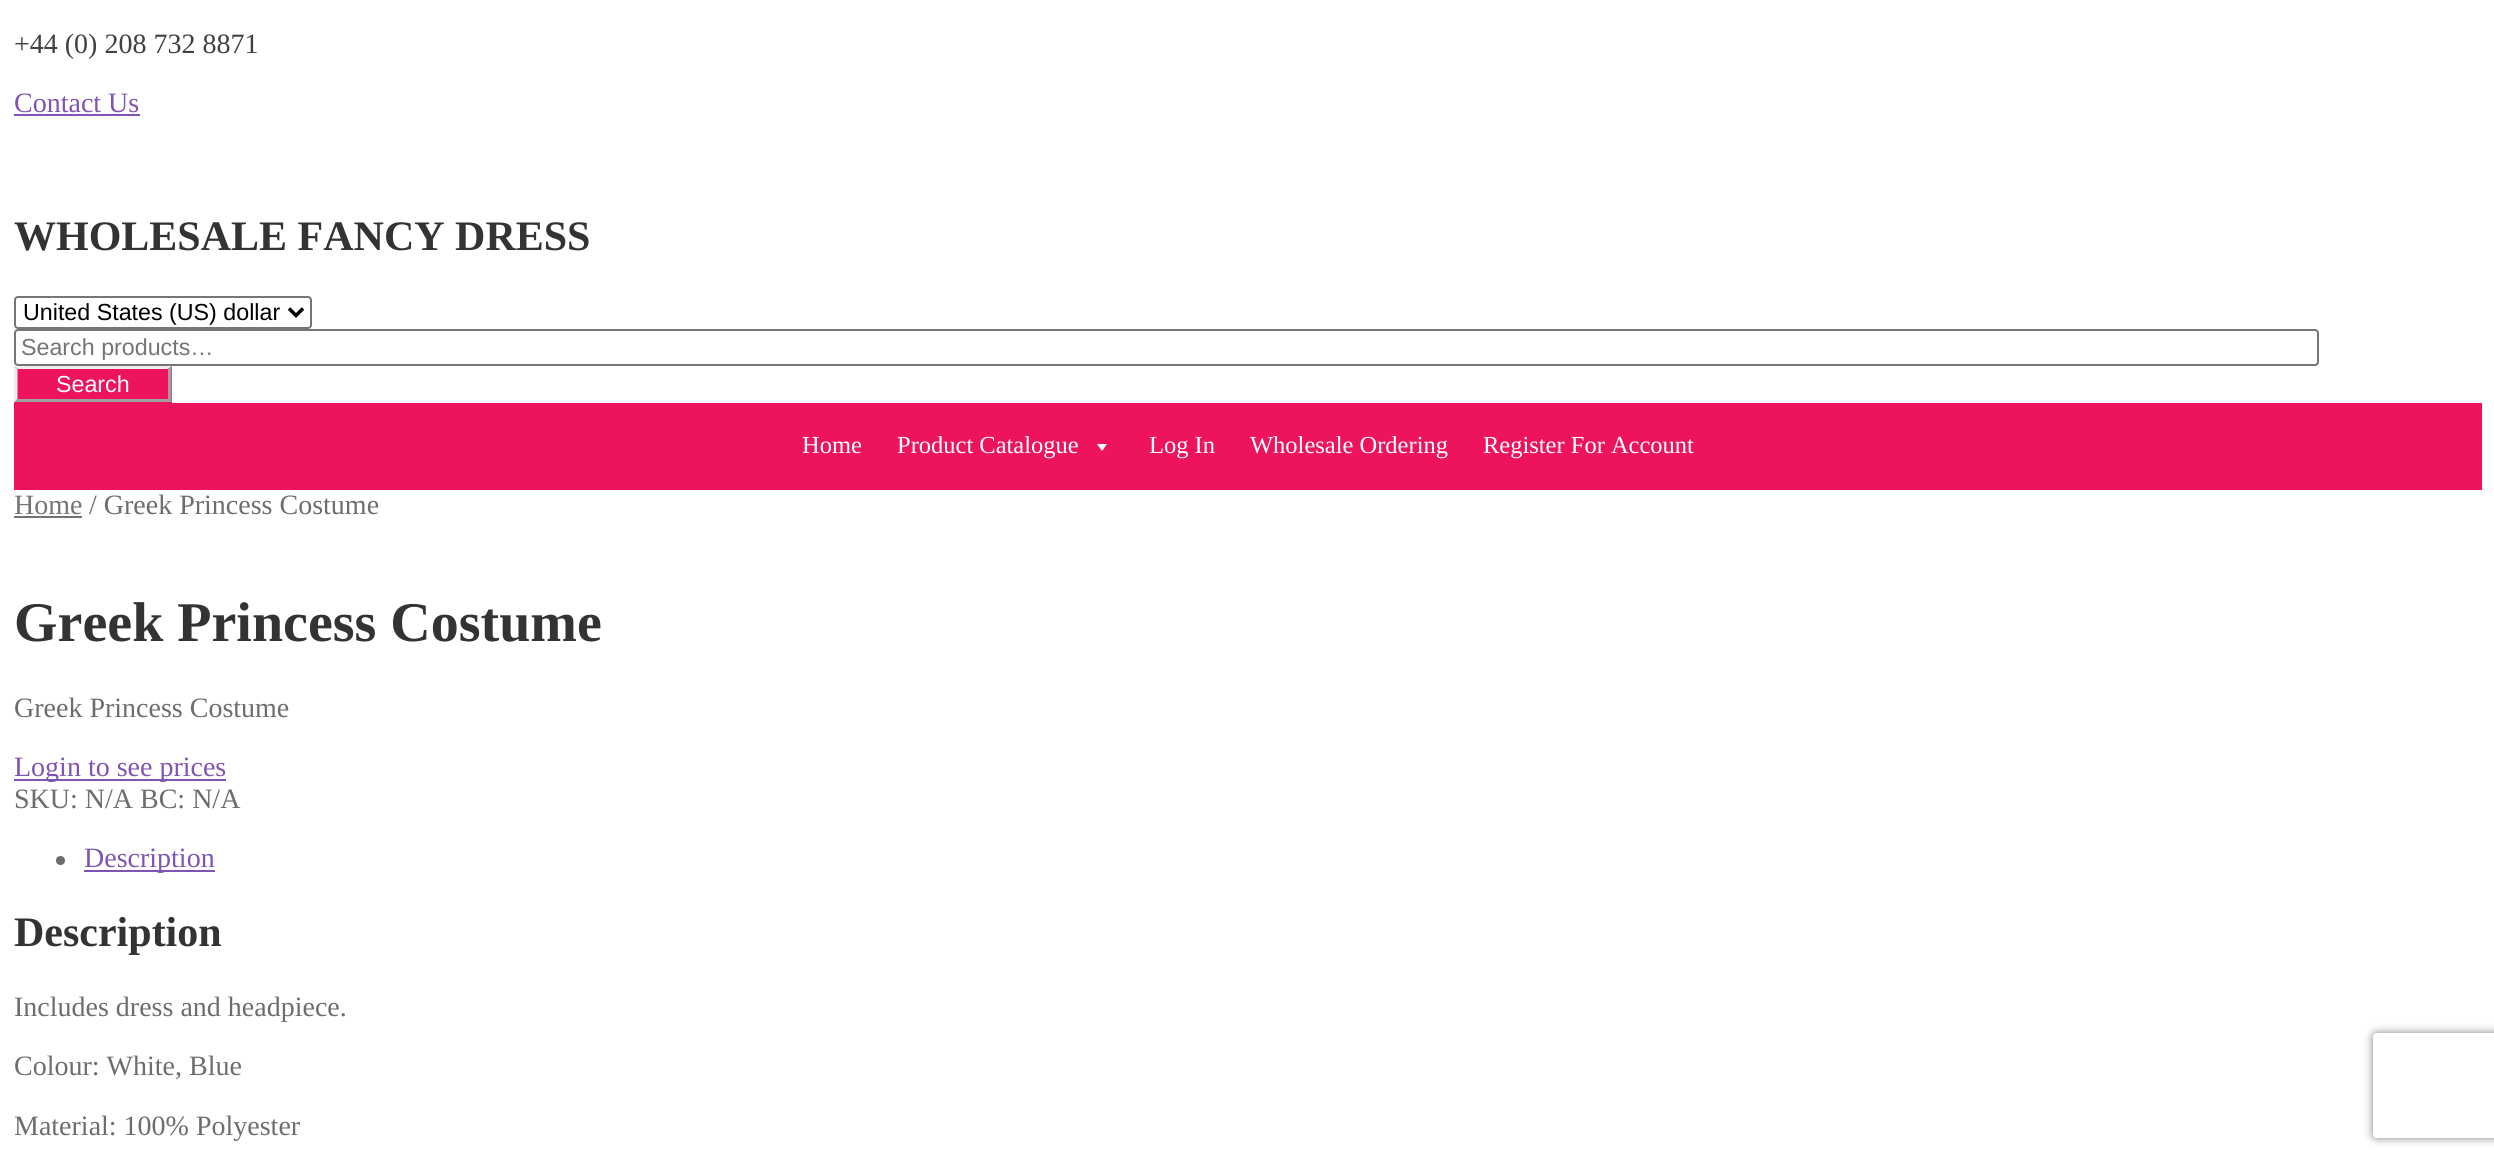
import math
import cairo

surface = cairo.ImageSurface(cairo.FORMAT_RGB24, 2494, 1162)
ctx = cairo.Context(surface)
options = cairo.FontOptions()
options.set_hint_metrics(cairo.HINT_METRICS_OFF)
options.set_hint_style(cairo.HINT_STYLE_NONE)
ctx.set_font_options(options)
ctx.set_miter_limit(4)


def round_rect(x, y, w, h, r):
    ctx.new_sub_path()
    for i, (u, v) in enumerate([(x + w - r, y + h - r), (x + r, y + h - r), (x + r, y + r), (x + w - r, y + r)]):
        ctx.arc(u, v, r, i * math.pi / 2, (i + 1) * math.pi / 2)
    ctx.close_path()


def shadow(x, y, w, h, r, blur, alpha):
    ctx.push_group_with_content(cairo.CONTENT_ALPHA)
    ctx.set_operator(cairo.OPERATOR_SOURCE)
    for i in range(15, -16, -2):
        e = blur * i / 6
        if min(w, h) + 2 * e > 0:
            ctx.set_source_rgba(0, 0, 0, alpha * math.erfc((i - 1) / 8.5) / 2)
            round_rect(x - e, y - e, w + 2 * e, h + 2 * e, max(0, min(r + e + blur * .6, min(w, h) / 2 + e)))
            ctx.fill()
    ctx.mask(ctx.pop_group())


ctx.set_source_rgb(1, 1, 1)
ctx.paint()
ctx.select_font_face("Liberation Serif")
ctx.set_font_size(28)
ctx.set_source_rgb(0.251, 0.251, 0.251)
ctx.move_to(14, 53)
ctx.show_text("+44 (0) 208 732 8871")
ctx.set_source_rgb(0.498, 0.329, 0.702)
ctx.move_to(14, 112)
ctx.show_text("Contact Us")
ctx.rectangle(14, 114, 126, 2)
ctx.fill()
ctx.select_font_face("Liberation Serif", cairo.FONT_SLANT_NORMAL, cairo.FONT_WEIGHT_BOLD)
ctx.set_font_size(42)
ctx.set_source_rgb(0.2, 0.2, 0.2)
ctx.move_to(14, 250)
ctx.show_text("WHOLESALE FANCY DRESS")
round_rect(15, 297, 296, 31, 3)
ctx.set_source_rgb(0.463, 0.463, 0.463)
ctx.stroke()
ctx.new_path()
ctx.move_to(289, 308.5)
ctx.line_to(296, 315.5)
ctx.line_to(303, 308.5)
ctx.set_source_rgb(0, 0, 0)
ctx.set_line_width(3.5)
ctx.stroke()
ctx.select_font_face("Liberation Sans")
ctx.set_font_size(23.25)
ctx.move_to(23, 320)
ctx.show_text("United States (US) dollar")
round_rect(15, 330, 2303, 35, 3)
ctx.set_source_rgb(0.463, 0.463, 0.463)
ctx.set_line_width(2)
ctx.stroke()
ctx.set_source_rgb(0.459, 0.459, 0.459)
ctx.move_to(21, 355)
ctx.show_text("Search products…")
ctx.set_source_rgb(0.929, 0.075, 0.369)
ctx.rectangle(14, 366, 158, 37)
ctx.fill()
ctx.set_source_rgb(0.933, 0.933, 0.933)
ctx.new_path()
ctx.move_to(14, 366)
ctx.line_to(172, 366)
ctx.line_to(168, 369)
ctx.line_to(18, 369)
ctx.close_path()
ctx.fill()
ctx.set_source_rgb(0.624, 0.624, 0.624)
ctx.new_path()
ctx.move_to(171.5, 366)
ctx.line_to(171.5, 402.5)
ctx.line_to(168, 399)
ctx.line_to(168, 369)
ctx.close_path()
ctx.fill()
ctx.new_path()
ctx.move_to(172, 402)
ctx.line_to(14, 402)
ctx.line_to(18, 399)
ctx.line_to(168, 399)
ctx.close_path()
ctx.fill()
ctx.set_source_rgb(0.933, 0.933, 0.933)
ctx.new_path()
ctx.move_to(14, 402.5)
ctx.line_to(14, 366)
ctx.line_to(17.5, 369)
ctx.line_to(17.5, 399)
ctx.close_path()
ctx.fill()
ctx.set_source_rgb(1, 1, 1)
ctx.move_to(56, 392)
ctx.show_text("Search")
ctx.set_source_rgb(0.929, 0.075, 0.369)
ctx.rectangle(14, 403, 2468, 87)
ctx.fill()
ctx.select_font_face("Liberation Serif")
ctx.set_font_size(24.5)
ctx.set_source_rgb(1, 1, 1)
ctx.move_to(802, 453)
ctx.show_text("Home")
ctx.move_to(897, 453)
ctx.show_text("Product Catalogue")
ctx.new_path()
ctx.move_to(1107, 444)
ctx.line_to(1102, 451)
ctx.line_to(1097, 444)
ctx.close_path()
ctx.fill()
ctx.move_to(1149, 453)
ctx.show_text("Log In")
ctx.move_to(1250, 453)
ctx.show_text("Wholesale Ordering")
ctx.move_to(1483, 453)
ctx.show_text("Register For Account")
ctx.set_font_size(28)
ctx.set_source_rgb(0.459, 0.459, 0.459)
ctx.move_to(14, 514)
ctx.show_text("Home")
ctx.set_source_rgb(0.447, 0.447, 0.447)
ctx.rectangle(14, 516, 68, 2)
ctx.fill()
ctx.set_source_rgb(0.427, 0.427, 0.427)
ctx.move_to(89, 514)
ctx.show_text("/ Greek Princess Costume")
ctx.select_font_face("Liberation Serif", cairo.FONT_SLANT_NORMAL, cairo.FONT_WEIGHT_BOLD)
ctx.set_font_size(56)
ctx.set_source_rgb(0.2, 0.2, 0.2)
ctx.move_to(14, 641)
ctx.show_text("Greek Princess Costume")
ctx.select_font_face("Liberation Serif")
ctx.set_font_size(28)
ctx.set_source_rgb(0.427, 0.427, 0.427)
ctx.move_to(14, 717)
ctx.show_text("Greek Princess Costume")
ctx.set_source_rgb(0.498, 0.329, 0.702)
ctx.rectangle(14, 779, 212, 2)
ctx.fill()
ctx.move_to(14, 776)
ctx.show_text("Login to see prices")
ctx.set_source_rgb(0.427, 0.427, 0.427)
ctx.move_to(14, 808)
ctx.show_text("SKU: N/A BC: N/A")
ctx.new_path()
ctx.arc(60.5, 860.5, 4.5, 0, 2 * math.pi)
ctx.fill()
ctx.set_source_rgb(0.498, 0.329, 0.702)
ctx.rectangle(84, 870, 131, 2)
ctx.fill()
ctx.move_to(84, 867)
ctx.show_text("Description")
ctx.select_font_face("Liberation Serif", cairo.FONT_SLANT_NORMAL, cairo.FONT_WEIGHT_BOLD)
ctx.set_font_size(42)
ctx.set_source_rgb(0.2, 0.2, 0.2)
ctx.move_to(14, 946)
ctx.show_text("Description")
ctx.select_font_face("Liberation Serif")
ctx.set_font_size(28)
ctx.set_source_rgb(0.427, 0.427, 0.427)
ctx.move_to(14, 1016)
ctx.show_text("Includes dress and headpiece.")
ctx.move_to(14, 1075)
ctx.show_text("Colour: White, Blue")
ctx.move_to(14, 1135)
ctx.show_text("Material: 100% Polyester")
ctx.save()
ctx.set_fill_rule(cairo.FILL_RULE_EVEN_ODD)
ctx.new_path()
ctx.move_to(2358, 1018)
ctx.line_to(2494, 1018)
ctx.line_to(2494, 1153)
ctx.line_to(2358, 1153)
ctx.close_path()
ctx.move_to(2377, 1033)
ctx.line_to(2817, 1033)
ctx.curve_to(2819, 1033, 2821, 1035, 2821, 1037)
ctx.line_to(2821, 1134)
ctx.curve_to(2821, 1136, 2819, 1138, 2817, 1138)
ctx.line_to(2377, 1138)
ctx.curve_to(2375, 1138, 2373, 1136, 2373, 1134)
ctx.line_to(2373, 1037)
ctx.curve_to(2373, 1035, 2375, 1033, 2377, 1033)
ctx.close_path()
ctx.clip()
ctx.set_source_rgb(0.502, 0.502, 0.502)
shadow(2373, 1033, 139, 105, 4, 4.5, 1)
ctx.restore()
surface.write_to_png("page.png")
